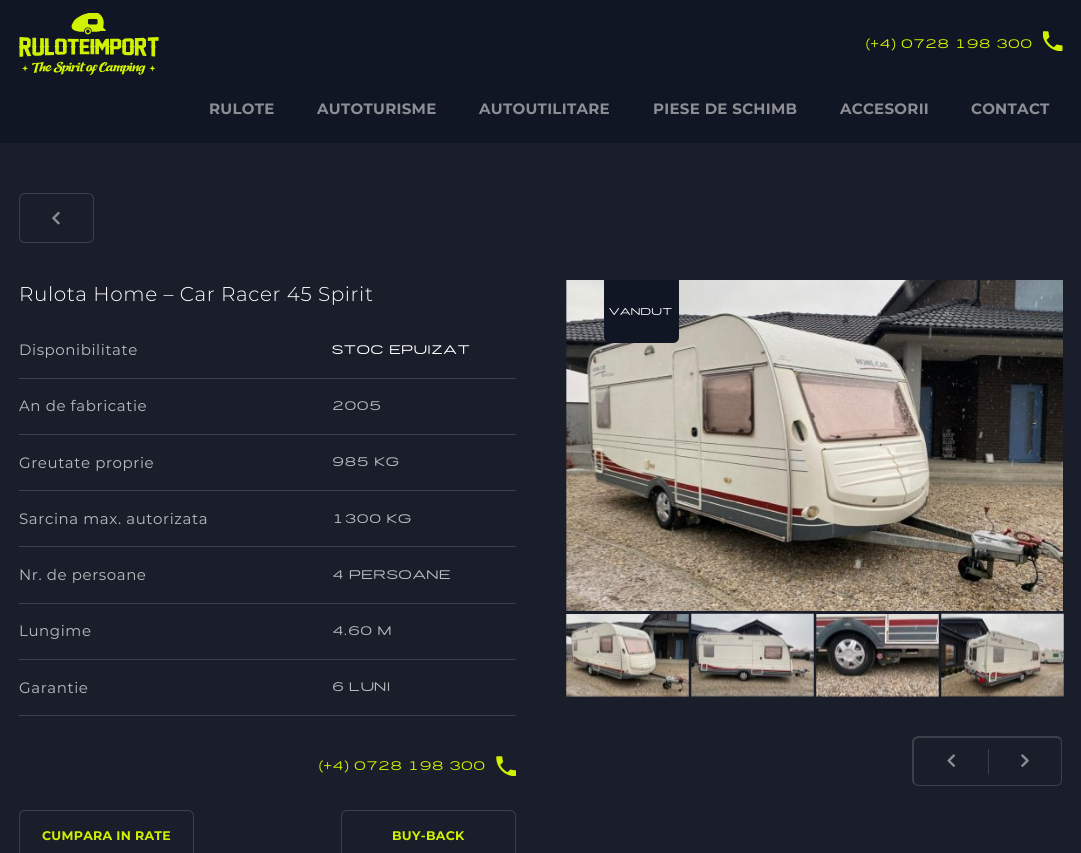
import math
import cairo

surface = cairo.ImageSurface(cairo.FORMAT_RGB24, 1081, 853)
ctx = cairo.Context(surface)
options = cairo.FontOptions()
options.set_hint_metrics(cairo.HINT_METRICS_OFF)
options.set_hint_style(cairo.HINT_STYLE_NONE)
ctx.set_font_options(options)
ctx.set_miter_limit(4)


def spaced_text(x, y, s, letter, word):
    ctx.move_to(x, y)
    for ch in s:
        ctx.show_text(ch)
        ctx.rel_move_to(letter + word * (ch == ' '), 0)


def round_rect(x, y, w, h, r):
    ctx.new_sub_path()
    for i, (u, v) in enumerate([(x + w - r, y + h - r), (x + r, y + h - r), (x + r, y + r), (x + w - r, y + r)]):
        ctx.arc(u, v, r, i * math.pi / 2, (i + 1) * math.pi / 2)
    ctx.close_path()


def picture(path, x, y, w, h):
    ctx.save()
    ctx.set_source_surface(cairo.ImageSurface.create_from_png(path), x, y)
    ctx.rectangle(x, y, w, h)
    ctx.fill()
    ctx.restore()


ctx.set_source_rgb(0.102, 0.118, 0.165)
ctx.paint()
ctx.set_source_rgb(0.067, 0.086, 0.141)
ctx.rectangle(0, 0, 1081, 143)
ctx.fill()
picture("img1.png", 19, 13, 140, 62)
ctx.select_font_face("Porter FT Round")
ctx.set_font_size(12.5)
ctx.set_source_rgb(0.816, 0.945, 0)
spaced_text(866, 48, "(+4) 0728 198 300", 0.3, 0)
picture("img2.png", 1043, 31, 20, 20)
ctx.select_font_face("Montserrat", cairo.FONT_SLANT_NORMAL, cairo.FONT_WEIGHT_BOLD)
ctx.set_font_size(15)
ctx.set_source_rgb(0.549, 0.557, 0.58)
spaced_text(209, 114, "RULOTE", 0.3, 0)
spaced_text(317, 114, "AUTOTURISME", 0.3, 0)
spaced_text(479, 114, "AUTOUTILITARE", 0.3, 0)
spaced_text(653, 114, "PIESE DE SCHIMB", 0.3, 0)
spaced_text(840, 114, "ACCESORII", 0.3, 0)
spaced_text(971, 114, "CONTACT", 0.3, 0)
round_rect(19.5, 193.5, 74, 49, 5.5)
ctx.set_source_rgb(0.235, 0.251, 0.29)
ctx.set_line_width(1)
ctx.stroke()
picture("img3.png", 52, 211, 8, 14)
ctx.select_font_face("Montserrat Light")
ctx.set_font_size(20)
ctx.set_source_rgb(1, 1, 1)
spaced_text(19, 301, "Rulota Home – Car Racer 45 Spirit", 0.6, 0)
ctx.set_source_rgb(0.235, 0.251, 0.29)
ctx.rectangle(19, 378, 497, 1)
ctx.fill()
ctx.select_font_face("Montserrat")
ctx.set_font_size(15)
ctx.set_source_rgb(0.729, 0.733, 0.749)
spaced_text(19, 355, "Disponibilitate", 0.6, 0)
ctx.select_font_face("Porter FT Round")
ctx.set_font_size(12.5)
ctx.set_source_rgb(1, 1, 1)
spaced_text(332, 354, "STOC EPUIZAT", 0.6, 0)
ctx.set_source_rgb(0.235, 0.251, 0.29)
ctx.rectangle(19, 434, 497, 1)
ctx.fill()
ctx.select_font_face("Montserrat")
ctx.set_font_size(15)
ctx.set_source_rgb(0.729, 0.733, 0.749)
spaced_text(19, 411, "An de fabricatie", 0.6, 0)
ctx.select_font_face("Porter FT Round")
ctx.set_font_size(12.5)
spaced_text(332, 410, "2005", 0.6, 0)
ctx.set_source_rgb(0.235, 0.251, 0.29)
ctx.rectangle(19, 490, 497, 1)
ctx.fill()
ctx.select_font_face("Montserrat")
ctx.set_font_size(15)
ctx.set_source_rgb(0.729, 0.733, 0.749)
spaced_text(19, 468, "Greutate proprie", 0.6, 0)
ctx.select_font_face("Porter FT Round")
ctx.set_font_size(12.5)
spaced_text(332, 466, "985 KG", 0.6, 0)
ctx.set_source_rgb(0.235, 0.251, 0.29)
ctx.rectangle(19, 546, 497, 1)
ctx.fill()
ctx.select_font_face("Montserrat")
ctx.set_font_size(15)
ctx.set_source_rgb(0.729, 0.733, 0.749)
spaced_text(19, 524, "Sarcina max. autorizata", 0.6, 0)
ctx.select_font_face("Porter FT Round")
ctx.set_font_size(12.5)
spaced_text(332, 523, "1300 KG", 0.6, 0)
ctx.set_source_rgb(0.235, 0.251, 0.29)
ctx.rectangle(19, 603, 497, 1)
ctx.fill()
ctx.select_font_face("Montserrat")
ctx.set_font_size(15)
ctx.set_source_rgb(0.729, 0.733, 0.749)
spaced_text(19, 580, "Nr. de persoane", 0.6, 0)
ctx.select_font_face("Porter FT Round")
ctx.set_font_size(12.5)
spaced_text(332, 579, "4 PERSOANE", 0.6, 0)
ctx.set_source_rgb(0.235, 0.251, 0.29)
ctx.rectangle(19, 659, 497, 1)
ctx.fill()
ctx.select_font_face("Montserrat")
ctx.set_font_size(15)
ctx.set_source_rgb(0.729, 0.733, 0.749)
spaced_text(19, 636, "Lungime", 0.6, 0)
ctx.select_font_face("Porter FT Round")
ctx.set_font_size(12.5)
spaced_text(332, 635, "4.60 M", 0.6, 0)
ctx.set_source_rgb(0.235, 0.251, 0.29)
ctx.rectangle(19, 715, 497, 1)
ctx.fill()
ctx.select_font_face("Montserrat")
ctx.set_font_size(15)
ctx.set_source_rgb(0.729, 0.733, 0.749)
spaced_text(19, 693, "Garantie", 0.6, 0)
ctx.select_font_face("Porter FT Round")
ctx.set_font_size(12.5)
spaced_text(332, 691, "6 LUNI", 0.6, 0)
ctx.set_source_rgb(0.816, 0.945, 0)
spaced_text(319, 770, "(+4) 0728 198 300", 0.3, 0)
picture("img4.png", 496, 756, 20, 20)
round_rect(19.5, 810.5, 174, 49, 5.5)
ctx.set_source_rgb(0.235, 0.251, 0.29)
ctx.stroke()
ctx.select_font_face("Montserrat", cairo.FONT_SLANT_NORMAL, cairo.FONT_WEIGHT_BOLD)
ctx.set_source_rgb(0.816, 0.945, 0)
spaced_text(42, 840, "CUMPARA IN RATE", 0.3, 0)
round_rect(341.5, 810.5, 174, 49, 5.5)
ctx.set_source_rgb(0.235, 0.251, 0.29)
ctx.stroke()
ctx.set_source_rgb(0.816, 0.945, 0)
spaced_text(392, 840, "BUY-BACK", 0.3, 0)
picture("img5.png", 566, 280, 497, 331)
ctx.set_source_rgb(0.067, 0.086, 0.141)
ctx.new_path()
ctx.move_to(604, 280)
ctx.line_to(679, 280)
ctx.line_to(679, 337)
ctx.curve_to(679, 340.5, 676.5, 343, 673, 343)
ctx.line_to(610, 343)
ctx.curve_to(606.5, 343, 604, 340.5, 604, 337)
ctx.close_path()
ctx.fill()
ctx.select_font_face("Porter FT Round")
ctx.set_font_size(10)
ctx.set_source_rgb(1, 1, 1)
spaced_text(609, 315, "VANDUT", 0.3, 0)
picture("img6.png", 566, 614, 123, 83)
picture("img7.png", 691, 613, 123, 84)
picture("img8.png", 816, 614, 123, 83)
picture("img9.png", 941, 613, 123, 84)
ctx.set_source_rgb(0.235, 0.251, 0.29)
ctx.set_fill_rule(cairo.FILL_RULE_EVEN_ODD)
ctx.new_path()
ctx.move_to(919, 736)
ctx.line_to(988, 736)
ctx.line_to(988, 786)
ctx.line_to(919, 786)
ctx.curve_to(915, 786, 912, 783, 912, 780)
ctx.line_to(912, 742)
ctx.curve_to(912, 739, 915, 736, 919, 736)
ctx.close_path()
ctx.move_to(919, 738)
ctx.line_to(988, 738)
ctx.line_to(988, 785)
ctx.line_to(919, 785)
ctx.curve_to(916, 785, 914, 783, 914, 780)
ctx.line_to(914, 742)
ctx.curve_to(914, 740, 916, 738, 919, 738)
ctx.close_path()
ctx.fill()
picture("img10.png", 947, 754, 9, 13)
ctx.new_path()
ctx.move_to(988, 736)
ctx.line_to(1056, 736)
ctx.curve_to(1060, 736, 1062, 739, 1062, 742)
ctx.line_to(1062, 780)
ctx.curve_to(1062, 783, 1060, 786, 1056, 786)
ctx.line_to(988, 786)
ctx.close_path()
ctx.move_to(988, 738)
ctx.line_to(1056, 738)
ctx.curve_to(1059, 738, 1061, 740, 1061, 742)
ctx.line_to(1061, 780)
ctx.curve_to(1061, 783, 1059, 785, 1056, 785)
ctx.line_to(988, 785)
ctx.close_path()
ctx.fill()
ctx.rectangle(988, 749, 1, 25)
ctx.fill()
picture("img11.png", 1021, 754, 8, 13)
surface.write_to_png("page.png")
